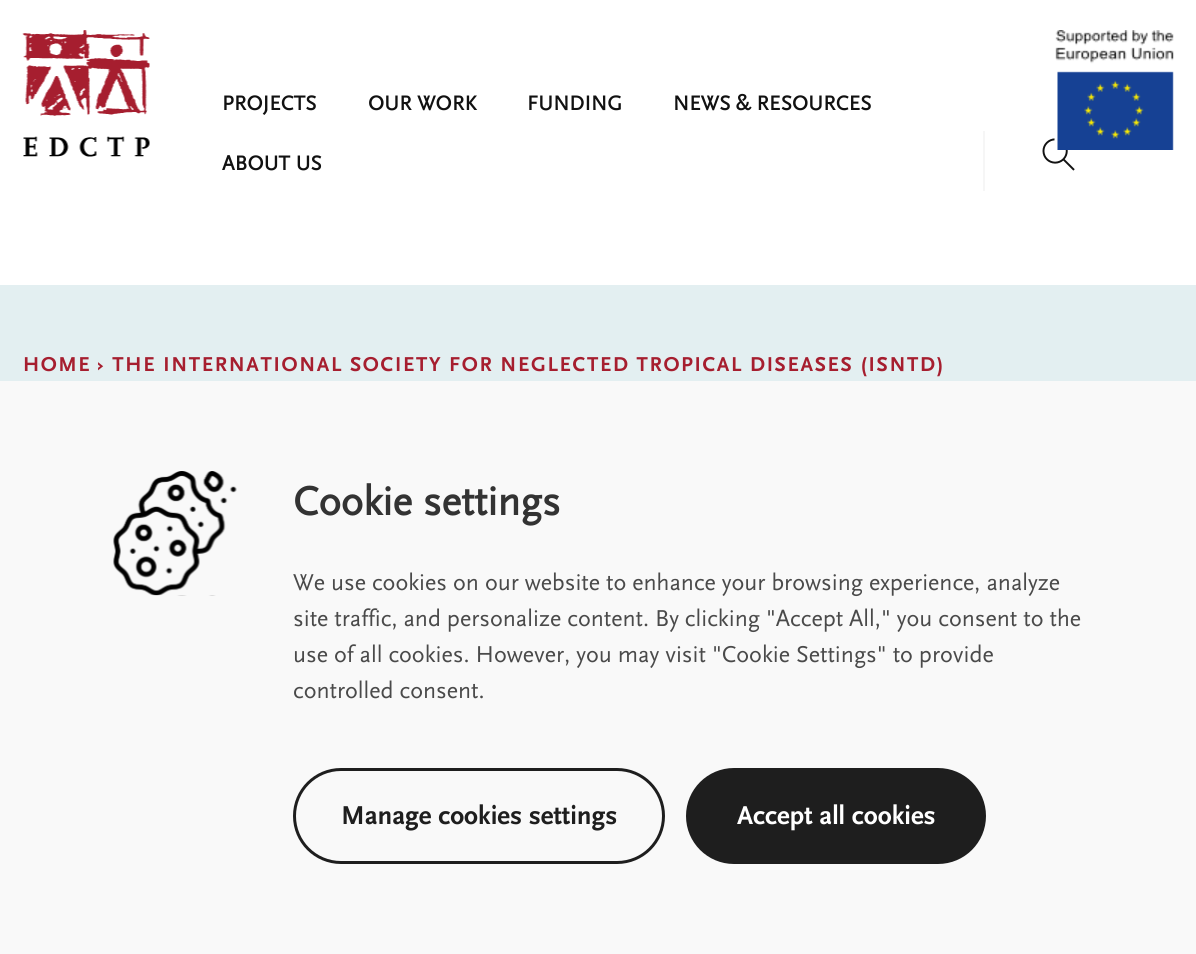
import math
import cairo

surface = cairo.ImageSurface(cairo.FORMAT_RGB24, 1196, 954)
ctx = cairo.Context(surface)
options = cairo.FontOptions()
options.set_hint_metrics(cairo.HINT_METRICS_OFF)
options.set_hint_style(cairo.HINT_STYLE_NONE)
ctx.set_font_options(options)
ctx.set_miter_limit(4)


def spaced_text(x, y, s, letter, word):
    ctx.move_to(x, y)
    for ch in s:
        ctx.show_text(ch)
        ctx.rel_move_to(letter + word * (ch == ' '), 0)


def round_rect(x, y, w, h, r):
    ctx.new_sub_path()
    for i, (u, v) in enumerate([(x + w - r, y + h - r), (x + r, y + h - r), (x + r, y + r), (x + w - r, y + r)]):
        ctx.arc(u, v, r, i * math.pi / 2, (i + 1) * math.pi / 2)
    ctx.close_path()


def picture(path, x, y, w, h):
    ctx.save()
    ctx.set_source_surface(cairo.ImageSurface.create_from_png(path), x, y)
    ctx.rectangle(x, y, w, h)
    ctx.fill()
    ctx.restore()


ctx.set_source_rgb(1, 1, 1)
ctx.paint()
picture("img1.png", 22, 30, 128, 127)
ctx.select_font_face("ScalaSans", cairo.FONT_SLANT_NORMAL, cairo.FONT_WEIGHT_BOLD)
ctx.set_font_size(21)
ctx.set_source_rgb(0.067, 0.067, 0.067)
spaced_text(222, 110, "PROJECTS", 0.25, 0)
spaced_text(368, 110, "OUR WORK", 0.25, 0)
spaced_text(527, 110, "FUNDING", 0.25, 0)
spaced_text(673, 110, "NEWS & RESOURCES", 0.25, 0)
spaced_text(222, 170, "ABOUT US", 0.25, 0)
picture("img3.png", 1042, 138, 33, 33)
picture("img2.png", 1054, 30, 120, 120)
ctx.set_source_rgb(0.961, 0.961, 0.961)
ctx.rectangle(983, 131, 2, 60)
ctx.fill()
ctx.set_source_rgb(0.89, 0.937, 0.945)
ctx.rectangle(0, 285, 1196, 96)
ctx.fill()
ctx.select_font_face("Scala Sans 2", cairo.FONT_SLANT_NORMAL, cairo.FONT_WEIGHT_BOLD)
ctx.set_source_rgb(0.651, 0.118, 0.184)
spaced_text(23, 371, "HOME", 1.5, 0)
spaced_text(97, 371, "› THE INTERNATIONAL SOCIETY FOR NEGLECTED TROPICAL DISEASES (ISNTD)", 1.68, 0)
ctx.set_source_rgb(0.976, 0.976, 0.976)
ctx.rectangle(0, 381, 1196, 573)
ctx.fill()
picture("img4.png", 113, 471, 124, 125)
ctx.select_font_face("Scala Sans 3", cairo.FONT_SLANT_NORMAL, cairo.FONT_WEIGHT_BOLD)
ctx.set_font_size(42)
ctx.set_source_rgb(0.2, 0.2, 0.2)
ctx.move_to(293, 515)
ctx.show_text("Cookie settings")
ctx.select_font_face("Scala Sans")
ctx.set_font_size(24)
ctx.set_source_rgb(0.29, 0.29, 0.29)
ctx.move_to(293, 590)
ctx.show_text("We use cookies on our website to enhance your browsing experience, analyze")
ctx.move_to(293, 626)
ctx.show_text("site traffic, and personalize content. By clicking \"Accept All,\" you consent to the")
ctx.move_to(293, 662)
ctx.show_text("use of all cookies. However, you may visit \"Cookie Settings\" to provide")
ctx.move_to(293, 698)
ctx.show_text("controlled consent.")
round_rect(294.5, 769.5, 369, 93, 46.5)
ctx.set_source_rgb(0.118, 0.118, 0.118)
ctx.set_line_width(3)
ctx.stroke()
ctx.select_font_face("Scala Sans 2", cairo.FONT_SLANT_NORMAL, cairo.FONT_WEIGHT_BOLD)
ctx.set_font_size(27)
ctx.move_to(341, 824)
ctx.show_text("Manage cookies settings")
round_rect(687.5, 769.5, 297, 93, 46.5)
ctx.fill_preserve()
ctx.stroke()
ctx.set_source_rgb(1, 1, 1)
ctx.move_to(737, 824)
ctx.show_text("Accept all cookies")
surface.write_to_png("page.png")
